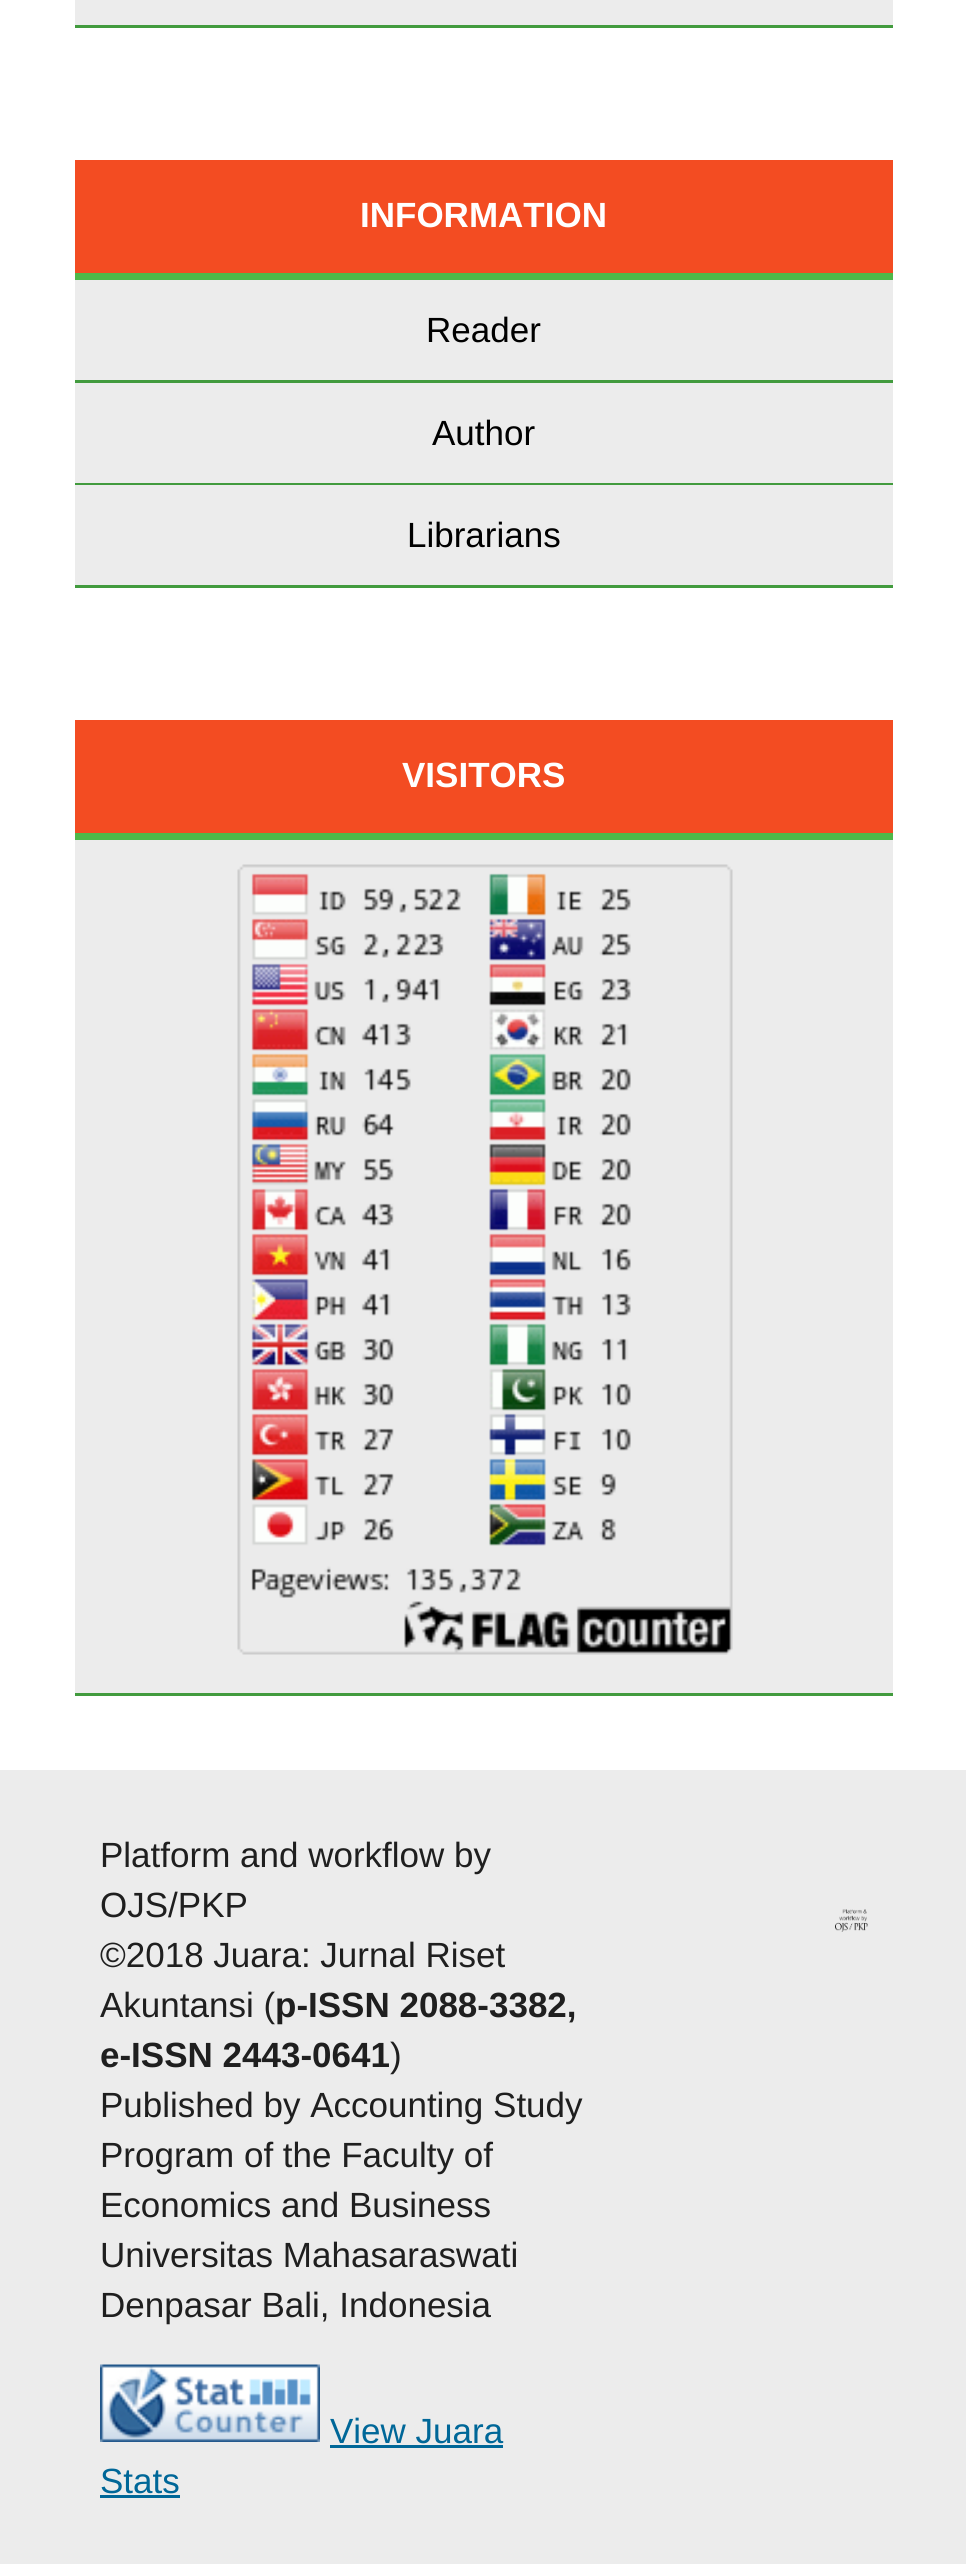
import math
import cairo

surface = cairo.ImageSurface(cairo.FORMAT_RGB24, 966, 2564)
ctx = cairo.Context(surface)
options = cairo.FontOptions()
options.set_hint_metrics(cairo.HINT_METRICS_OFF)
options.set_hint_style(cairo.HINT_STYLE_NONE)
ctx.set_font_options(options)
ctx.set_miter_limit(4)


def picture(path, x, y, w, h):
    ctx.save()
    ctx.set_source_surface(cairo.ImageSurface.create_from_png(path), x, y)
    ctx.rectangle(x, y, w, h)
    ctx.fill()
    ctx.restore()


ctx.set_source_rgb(1, 1, 1)
ctx.paint()
ctx.set_source_rgb(0.922, 0.922, 0.922)
ctx.rectangle(75, 0, 818, 25)
ctx.fill()
ctx.set_source_rgb(0.259, 0.608, 0.243)
ctx.rectangle(75, 25, 818, 3)
ctx.fill()
ctx.set_source_rgb(0.953, 0.298, 0.133)
ctx.rectangle(75, 160, 818, 113)
ctx.fill()
ctx.set_source_rgb(0.306, 0.722, 0.286)
ctx.rectangle(75, 273, 818, 7)
ctx.fill()
ctx.select_font_face("Liberation Sans", cairo.FONT_SLANT_NORMAL, cairo.FONT_WEIGHT_BOLD)
ctx.set_font_size(35)
ctx.set_source_rgb(1, 1, 1)
ctx.move_to(360, 227)
ctx.show_text("INFORMATION")
ctx.set_source_rgb(0.922, 0.922, 0.922)
ctx.rectangle(75, 280, 818, 100)
ctx.fill()
ctx.set_source_rgb(0.259, 0.608, 0.243)
ctx.rectangle(75, 380, 818, 3)
ctx.fill()
ctx.select_font_face("Liberation Sans")
ctx.set_source_rgb(0, 0, 0)
ctx.move_to(426, 342)
ctx.show_text("Reader")
ctx.set_source_rgb(0.922, 0.922, 0.922)
ctx.rectangle(75, 383, 818, 100)
ctx.fill()
ctx.set_source_rgb(0.259, 0.608, 0.243)
ctx.rectangle(75, 483, 818, 2)
ctx.fill()
ctx.set_source_rgb(0, 0, 0)
ctx.move_to(432, 445)
ctx.show_text("Author")
ctx.set_source_rgb(0.922, 0.922, 0.922)
ctx.rectangle(75, 485, 818, 100)
ctx.fill()
ctx.set_source_rgb(0.259, 0.608, 0.243)
ctx.rectangle(75, 585, 818, 3)
ctx.fill()
ctx.set_source_rgb(0, 0, 0)
ctx.move_to(407, 547)
ctx.show_text("Librarians")
ctx.set_source_rgb(0.953, 0.298, 0.133)
ctx.rectangle(75, 720, 818, 113)
ctx.fill()
ctx.set_source_rgb(0.306, 0.722, 0.286)
ctx.rectangle(75, 833, 818, 7)
ctx.fill()
ctx.select_font_face("Liberation Sans", cairo.FONT_SLANT_NORMAL, cairo.FONT_WEIGHT_BOLD)
ctx.set_source_rgb(1, 1, 1)
ctx.move_to(402, 787)
ctx.show_text("VISITORS")
ctx.set_source_rgb(0.922, 0.922, 0.922)
ctx.rectangle(75, 840, 818, 853)
ctx.fill()
ctx.set_source_rgb(0.259, 0.608, 0.243)
ctx.rectangle(75, 1693, 818, 3)
ctx.fill()
picture("img1.png", 237, 864, 496, 791)
ctx.set_source_rgb(0.922, 0.922, 0.922)
ctx.rectangle(0, 1770, 966, 794)
ctx.fill()
ctx.select_font_face("Liberation Sans")
ctx.set_source_rgb(0.122, 0.122, 0.122)
ctx.move_to(100, 1867)
ctx.show_text("Platform and workflow by")
ctx.move_to(100, 1917)
ctx.show_text("OJS/PKP")
ctx.move_to(100, 1967)
ctx.show_text("©2018 Juara: Jurnal Riset")
ctx.move_to(100, 2017)
ctx.show_text("Akuntansi (")
ctx.select_font_face("Liberation Sans", cairo.FONT_SLANT_NORMAL, cairo.FONT_WEIGHT_BOLD)
ctx.move_to(275, 2017)
ctx.show_text("p-ISSN 2088-3382,")
ctx.move_to(100, 2067)
ctx.show_text("e-ISSN 2443-0641")
ctx.select_font_face("Liberation Sans")
ctx.move_to(390, 2067)
ctx.show_text(")")
ctx.move_to(100, 2117)
ctx.show_text("Published by Accounting Study")
ctx.move_to(100, 2167)
ctx.show_text("Program of the Faculty of")
ctx.move_to(100, 2217)
ctx.show_text("Economics and Business")
ctx.move_to(100, 2267)
ctx.show_text("Universitas Mahasaraswati")
ctx.move_to(100, 2317)
ctx.show_text("Denpasar Bali, Indonesia")
picture("img2.png", 100, 2364, 220, 78)
ctx.set_source_rgb(0, 0.404, 0.596)
ctx.move_to(330, 2443)
ctx.show_text("View Juara")
ctx.rectangle(330, 2445, 173, 3)
ctx.fill()
ctx.move_to(100, 2493)
ctx.show_text("Stats")
ctx.rectangle(100, 2495, 80, 3)
ctx.fill()
picture("img3.png", 835, 1909, 33, 23)
surface.write_to_png("page.png")
